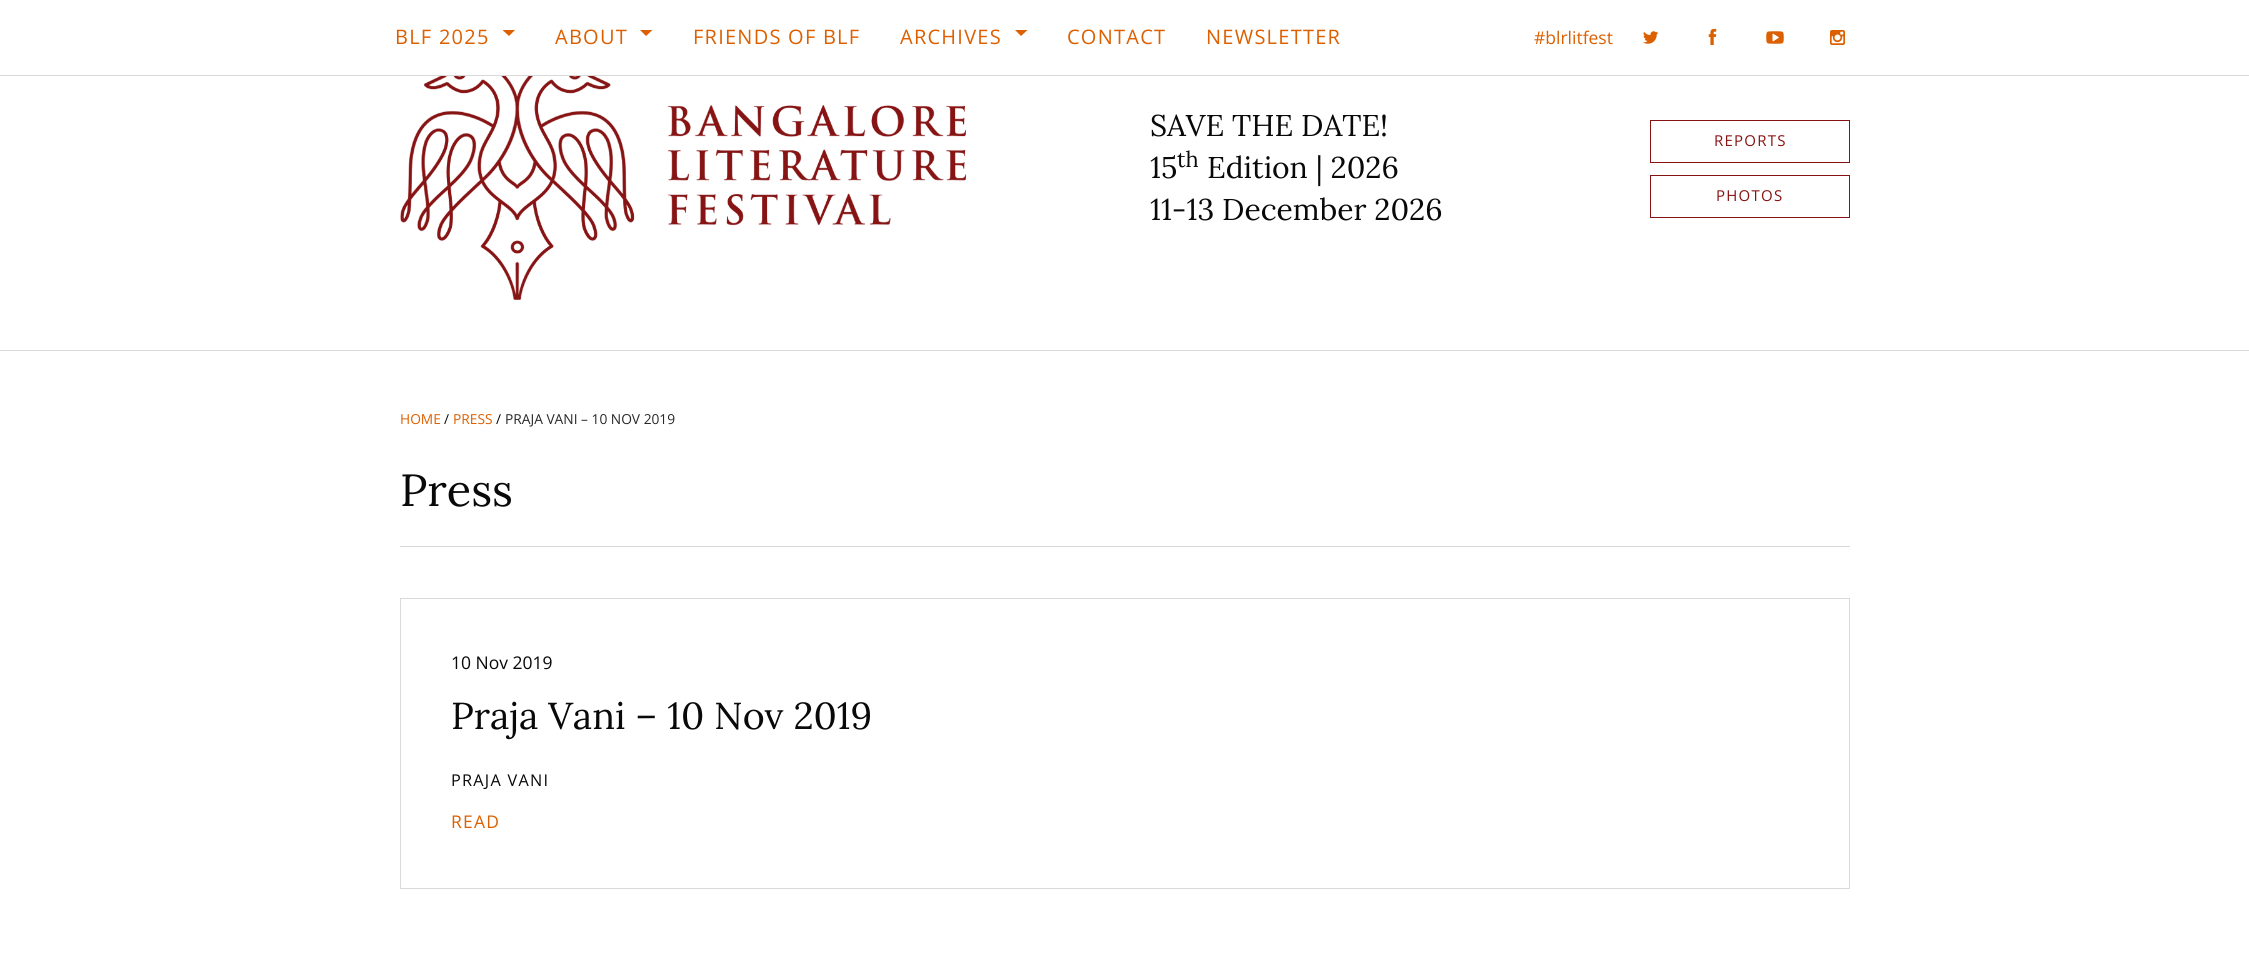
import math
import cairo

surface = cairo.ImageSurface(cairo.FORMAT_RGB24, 2249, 955)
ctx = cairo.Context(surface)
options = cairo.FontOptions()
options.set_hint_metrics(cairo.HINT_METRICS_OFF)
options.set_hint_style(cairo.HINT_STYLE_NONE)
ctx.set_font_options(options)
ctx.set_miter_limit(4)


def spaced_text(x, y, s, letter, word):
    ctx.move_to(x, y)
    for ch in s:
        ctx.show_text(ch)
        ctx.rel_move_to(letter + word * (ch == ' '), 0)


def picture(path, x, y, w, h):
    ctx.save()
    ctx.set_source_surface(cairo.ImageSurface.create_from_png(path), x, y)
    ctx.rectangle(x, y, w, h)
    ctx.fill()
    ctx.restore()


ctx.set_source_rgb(1, 1, 1)
ctx.paint()
ctx.set_source_rgb(0.851, 0.851, 0.851)
ctx.rectangle(0, 350, 2249, 1)
ctx.fill()
ctx.rectangle(0, 75, 2249, 1)
ctx.fill()
ctx.select_font_face("Open Sans")
ctx.set_font_size(20)
ctx.set_source_rgb(0.863, 0.373, 0)
spaced_text(395, 44, "BLF 2025", 1.25, 0)
ctx.new_path()
ctx.move_to(502.5, 30)
ctx.line_to(515, 30)
ctx.line_to(509, 36)
ctx.close_path()
ctx.fill()
spaced_text(555, 44, "ABOUT", 1.25, 0)
ctx.new_path()
ctx.move_to(640, 30)
ctx.line_to(652.5, 30)
ctx.line_to(646, 36)
ctx.close_path()
ctx.fill()
spaced_text(693, 44, "FRIENDS OF BLF", 1.25, 0)
spaced_text(900, 44, "ARCHIVES", 1.25, 0)
ctx.new_path()
ctx.move_to(1015, 30)
ctx.line_to(1027.5, 30)
ctx.line_to(1021, 36)
ctx.close_path()
ctx.fill()
spaced_text(1067, 44, "CONTACT", 1.25, 0)
spaced_text(1206, 44, "NEWSLETTER", 1.25, 0)
ctx.set_font_size(17.5)
ctx.move_to(1534, 44)
ctx.show_text("#blrlitfest")
picture("img1.png", 1643, 31, 16, 13)
picture("img2.png", 1708, 28, 9, 17)
picture("img3.png", 1766, 31, 18, 13)
picture("img4.png", 1830, 30, 15, 15)
picture("img5.png", 400, 76, 567, 224)
ctx.select_font_face("Lora")
ctx.set_font_size(30)
ctx.set_source_rgb(0.039, 0.039, 0.039)
ctx.move_to(1150, 136)
ctx.show_text("SAVE THE DATE!")
ctx.move_to(1150, 178)
ctx.show_text("15")
ctx.set_font_size(22)
ctx.move_to(1177, 167)
ctx.show_text("th")
ctx.set_font_size(30)
ctx.move_to(1207, 178)
ctx.show_text("Edition | 2026")
ctx.move_to(1150, 220)
ctx.show_text("11-13 December 2026")
ctx.rectangle(1650.5, 120.5, 199, 42)
ctx.set_source_rgb(0.529, 0.078, 0.078)
ctx.set_line_width(1)
ctx.stroke()
ctx.select_font_face("Open Sans")
ctx.set_font_size(15)
spaced_text(1714, 146, "REPORTS", 1.25, 0)
ctx.rectangle(1650.5, 175.5, 199, 42)
ctx.stroke()
spaced_text(1716, 201, "PHOTOS", 1.25, 0)
ctx.set_source_rgb(0.851, 0.851, 0.851)
ctx.rectangle(400, 546, 1450, 1)
ctx.fill()
ctx.set_font_size(13.75)
ctx.set_source_rgb(0.863, 0.373, 0)
ctx.move_to(400, 424)
ctx.show_text("HOME")
ctx.set_source_rgb(0.039, 0.039, 0.039)
ctx.move_to(444, 424)
ctx.show_text("/")
ctx.set_source_rgb(0.863, 0.373, 0)
ctx.move_to(453, 424)
ctx.show_text("PRESS")
ctx.set_source_rgb(0.039, 0.039, 0.039)
ctx.move_to(496, 424)
ctx.show_text("/")
ctx.set_source_rgb(0.157, 0.157, 0.157)
ctx.move_to(505, 424)
ctx.show_text("PRAJA VANI – 10 NOV 2019")
ctx.select_font_face("Lora")
ctx.set_font_size(45)
ctx.set_source_rgb(0.039, 0.039, 0.039)
ctx.move_to(400, 506)
ctx.show_text("Press")
ctx.rectangle(400.5, 598.5, 1449, 290)
ctx.set_source_rgb(0.851, 0.851, 0.851)
ctx.stroke()
ctx.select_font_face("Open Sans")
ctx.set_font_size(17.5)
ctx.set_source_rgb(0.039, 0.039, 0.039)
ctx.move_to(451, 669)
ctx.show_text("10 Nov 2019")
ctx.select_font_face("Lora")
ctx.set_font_size(37.5)
ctx.move_to(451, 729)
ctx.show_text("Praja Vani – 10 Nov 2019")
ctx.select_font_face("Open Sans")
ctx.set_font_size(16.25)
spaced_text(451, 786, "PRAJA VANI", 1.25, 0)
ctx.set_font_size(17.5)
ctx.set_source_rgb(0.863, 0.373, 0)
spaced_text(451, 828, "READ", 1.25, 0)
surface.write_to_png("page.png")
